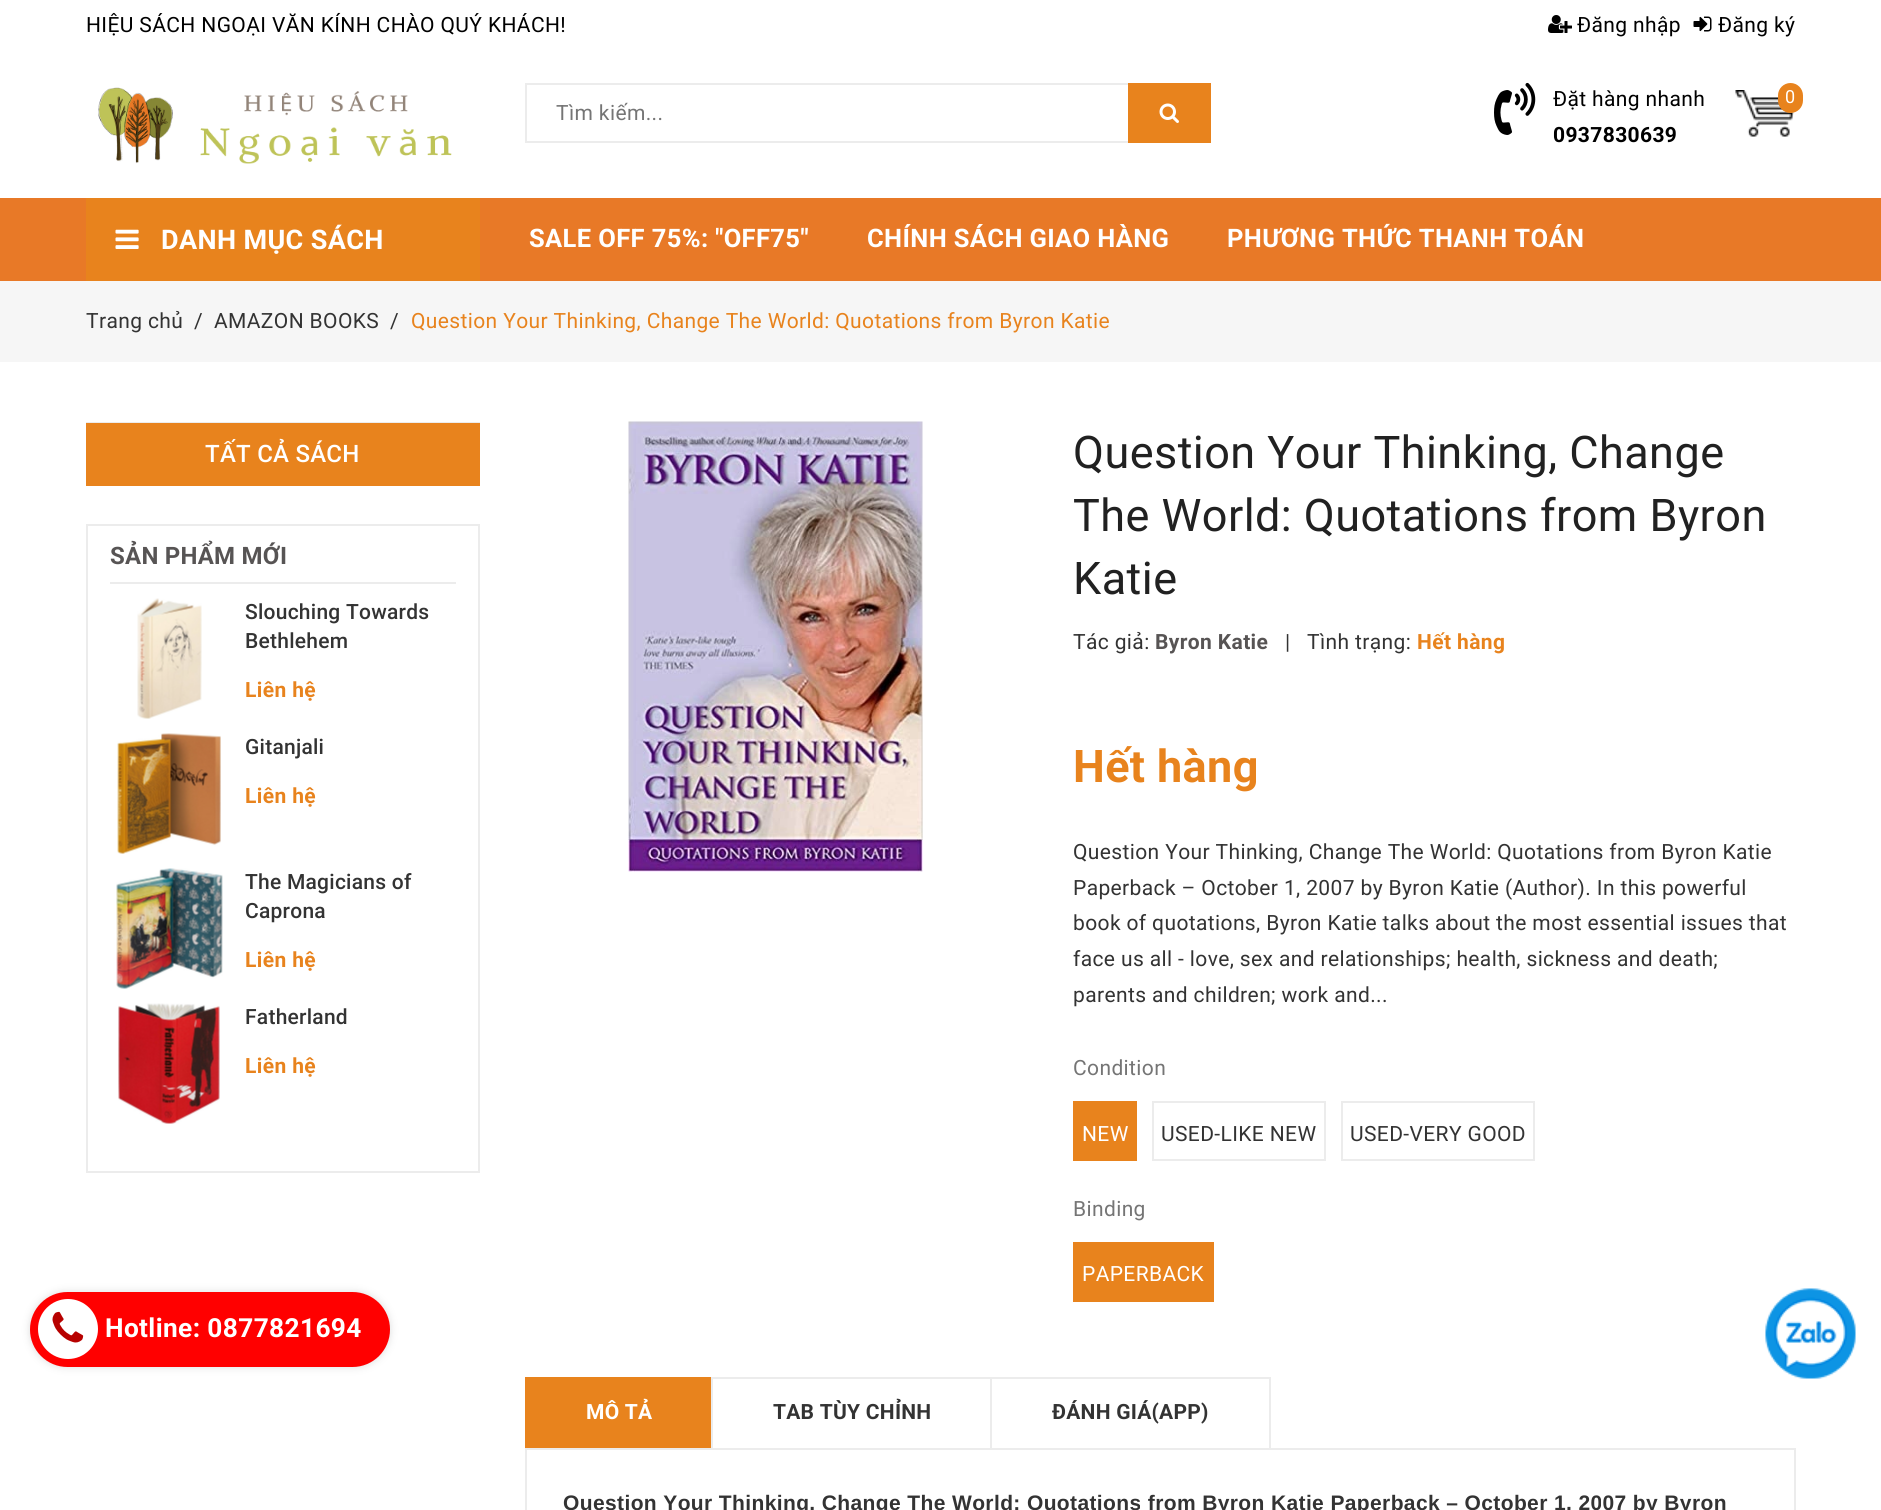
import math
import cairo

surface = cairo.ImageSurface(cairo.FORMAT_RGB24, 1881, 1510)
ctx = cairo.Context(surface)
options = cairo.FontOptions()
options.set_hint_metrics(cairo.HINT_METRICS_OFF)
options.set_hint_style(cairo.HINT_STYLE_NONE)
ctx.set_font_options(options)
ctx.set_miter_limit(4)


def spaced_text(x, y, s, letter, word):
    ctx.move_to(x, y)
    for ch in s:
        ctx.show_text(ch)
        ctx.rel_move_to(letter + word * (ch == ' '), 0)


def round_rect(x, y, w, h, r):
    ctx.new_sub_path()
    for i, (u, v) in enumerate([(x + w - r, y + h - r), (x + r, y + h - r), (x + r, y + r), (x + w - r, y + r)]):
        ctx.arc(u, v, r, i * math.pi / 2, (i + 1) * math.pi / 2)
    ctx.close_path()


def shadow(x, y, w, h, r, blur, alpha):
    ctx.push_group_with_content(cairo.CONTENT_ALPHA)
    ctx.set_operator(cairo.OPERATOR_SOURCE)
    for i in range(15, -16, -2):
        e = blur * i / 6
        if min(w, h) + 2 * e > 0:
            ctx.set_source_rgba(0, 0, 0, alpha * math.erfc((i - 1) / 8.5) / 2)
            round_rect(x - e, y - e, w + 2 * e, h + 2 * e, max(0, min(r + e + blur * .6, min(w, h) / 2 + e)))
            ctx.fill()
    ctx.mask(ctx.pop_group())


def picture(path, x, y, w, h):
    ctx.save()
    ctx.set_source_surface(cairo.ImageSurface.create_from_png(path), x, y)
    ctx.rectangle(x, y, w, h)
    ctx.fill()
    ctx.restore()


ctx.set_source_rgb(1, 1, 1)
ctx.paint()
ctx.select_font_face("Roboto")
ctx.set_font_size(21)
ctx.set_source_rgb(0, 0, 0)
spaced_text(86, 32, "HIỆU SÁCH NGOẠI VĂN KÍNH CHÀO QUÝ KHÁCH!", 0.38, 0)
picture("img1.png", 1548, 15, 24, 18)
spaced_text(1577, 32, "Đăng nhập", 0.38, 0)
picture("img2.png", 1693, 16, 19, 16)
spaced_text(1718, 32, "Đăng ký", 0.38, 0)
picture("img3.png", 98, 87, 354, 77)
ctx.rectangle(526, 84, 603, 58)
ctx.set_source_rgb(0.922, 0.922, 0.922)
ctx.stroke()
ctx.set_source_rgb(0.459, 0.459, 0.459)
spaced_text(556, 120, "Tìm kiếm...", 0.38, 0)
ctx.set_source_rgb(0.91, 0.514, 0.114)
ctx.rectangle(1128, 83, 83, 60)
ctx.fill()
picture("img4.png", 1159, 103, 20, 20)
picture("img5.png", 1494, 82, 42, 53)
ctx.set_source_rgb(0, 0, 0)
spaced_text(1553, 106, "Đặt hàng nhanh", 0.38, 0)
ctx.select_font_face("Roboto", cairo.FONT_SLANT_NORMAL, cairo.FONT_WEIGHT_BOLD)
spaced_text(1553, 142, "0937830639", 0.38, 0)
picture("img6.png", 1735, 90, 59, 47)
ctx.set_source_rgb(0.91, 0.514, 0.114)
round_rect(1778, 83, 25, 30, 12.5)
ctx.fill()
ctx.select_font_face("Roboto")
ctx.set_font_size(18)
ctx.set_source_rgb(1, 1, 1)
spaced_text(1785, 103, "0", 0.38, 0)
ctx.set_source_rgb(0.91, 0.475, 0.153)
ctx.rectangle(0, 198, 1881, 83)
ctx.fill()
ctx.set_source_rgb(0.91, 0.514, 0.114)
ctx.rectangle(86, 198, 394, 83)
ctx.fill()
picture("img7.png", 115, 229, 24, 20)
ctx.select_font_face("Roboto", cairo.FONT_SLANT_NORMAL, cairo.FONT_WEIGHT_BOLD)
ctx.set_font_size(27)
ctx.set_source_rgb(1, 1, 1)
spaced_text(161, 249, "DANH MỤC SÁCH", 0.38, 0)
ctx.set_font_size(25.5)
spaced_text(529, 247, "SALE OFF 75%: \"OFF75\"", 0.38, 0)
spaced_text(867, 247, "CHÍNH SÁCH GIAO HÀNG", 0.38, 0)
spaced_text(1227, 247, "PHƯƠNG THỨC THANH TOÁN", 0.38, 0)
ctx.set_source_rgb(0.961, 0.961, 0.961)
ctx.rectangle(0, 281, 1881, 81)
ctx.fill()
ctx.select_font_face("Roboto")
ctx.set_font_size(21)
ctx.set_source_rgb(0.2, 0.2, 0.2)
spaced_text(86, 328, "Trang chủ", 0.38, 0)
spaced_text(194, 328, "/", 0.38, 0)
spaced_text(214, 328, "AMAZON BOOKS", 0.38, 0)
spaced_text(390, 328, "/", 0.38, 0)
ctx.set_source_rgb(0.91, 0.514, 0.114)
spaced_text(411, 328, "Question Your Thinking, Change The World: Quotations from Byron Katie", 0.38, 0)
ctx.rectangle(87, 423, 392, 62)
ctx.set_source_rgb(0.922, 0.922, 0.922)
ctx.stroke()
ctx.set_source_rgb(0.91, 0.514, 0.114)
ctx.rectangle(86, 423, 394, 63)
ctx.fill()
ctx.select_font_face("Roboto Medium")
ctx.set_font_size(24)
ctx.set_source_rgb(1, 1, 1)
spaced_text(205, 462, "TẤT CẢ SÁCH", 0.25, 0)
ctx.rectangle(87, 525, 392, 647)
ctx.set_source_rgb(0.922, 0.922, 0.922)
ctx.stroke()
ctx.rectangle(110, 582, 346, 2)
ctx.fill()
ctx.select_font_face("Roboto", cairo.FONT_SLANT_NORMAL, cairo.FONT_WEIGHT_BOLD)
ctx.set_source_rgb(0.341, 0.329, 0.329)
spaced_text(110, 564, "SẢN PHẨM MỚI", 0.25, 0)
picture("img8.png", 137, 598, 65, 121)
ctx.select_font_face("Roboto Medium")
ctx.set_font_size(21)
ctx.set_source_rgb(0.2, 0.2, 0.2)
spaced_text(245, 619, "Slouching Towards", 0.25, 0)
spaced_text(245, 648, "Bethlehem", 0.25, 0)
ctx.select_font_face("Roboto", cairo.FONT_SLANT_NORMAL, cairo.FONT_WEIGHT_BOLD)
ctx.set_source_rgb(0.91, 0.514, 0.114)
spaced_text(245, 697, "Liên hệ", 0.38, 0)
picture("img9.png", 117, 733, 104, 121)
ctx.select_font_face("Roboto Medium")
ctx.set_source_rgb(0.2, 0.2, 0.2)
spaced_text(245, 754, "Gitanjali", 0.25, 0)
ctx.select_font_face("Roboto", cairo.FONT_SLANT_NORMAL, cairo.FONT_WEIGHT_BOLD)
ctx.set_source_rgb(0.91, 0.514, 0.114)
spaced_text(245, 803, "Liên hệ", 0.38, 0)
picture("img10.png", 116, 868, 107, 121)
ctx.select_font_face("Roboto Medium")
ctx.set_source_rgb(0.2, 0.2, 0.2)
spaced_text(245, 889, "The Magicians of", 0.25, 0)
spaced_text(245, 918, "Caprona", 0.25, 0)
ctx.select_font_face("Roboto", cairo.FONT_SLANT_NORMAL, cairo.FONT_WEIGHT_BOLD)
ctx.set_source_rgb(0.91, 0.514, 0.114)
spaced_text(245, 967, "Liên hệ", 0.38, 0)
picture("img11.png", 118, 1003, 102, 121)
ctx.select_font_face("Roboto Medium")
ctx.set_source_rgb(0.2, 0.2, 0.2)
spaced_text(245, 1024, "Fatherland", 0.25, 0)
ctx.select_font_face("Roboto", cairo.FONT_SLANT_NORMAL, cairo.FONT_WEIGHT_BOLD)
ctx.set_source_rgb(0.91, 0.514, 0.114)
spaced_text(245, 1073, "Liên hệ", 0.38, 0)
picture("img12.png", 628, 421, 295, 451)
ctx.select_font_face("Roboto")
ctx.set_font_size(45)
ctx.set_source_rgb(0.129, 0.129, 0.129)
spaced_text(1073, 468, "Question Your Thinking, Change", 0.45, 0)
spaced_text(1073, 531, "The World: Quotations from Byron", 0.45, 0)
spaced_text(1073, 594, "Katie", 0.45, 0)
ctx.set_font_size(21)
ctx.set_source_rgb(0.2, 0.2, 0.2)
spaced_text(1073, 649, "Tác giả:", 0.38, 0)
ctx.select_font_face("Roboto", cairo.FONT_SLANT_NORMAL, cairo.FONT_WEIGHT_BOLD)
ctx.set_source_rgb(0.341, 0.329, 0.329)
spaced_text(1155, 649, "Byron Katie", 0.38, 0)
ctx.select_font_face("Roboto")
ctx.set_source_rgb(0.2, 0.2, 0.2)
spaced_text(1285, 649, "|", 0.38, 0)
spaced_text(1307, 649, "Tình trạng:", 0.38, 0)
ctx.select_font_face("Roboto", cairo.FONT_SLANT_NORMAL, cairo.FONT_WEIGHT_BOLD)
ctx.set_source_rgb(0.91, 0.514, 0.114)
spaced_text(1417, 649, "Hết hàng", 0.38, 0)
ctx.set_font_size(45)
spaced_text(1073, 782, "Hết hàng", 0.38, 0)
ctx.select_font_face("Roboto")
ctx.set_font_size(21)
ctx.set_source_rgb(0.2, 0.2, 0.2)
spaced_text(1073, 859, "Question Your Thinking, Change The World: Quotations from Byron Katie", 0.38, 0)
spaced_text(1073, 895, "Paperback – October 1, 2007 by Byron Katie (Author). In this powerful", 0.38, 0)
spaced_text(1073, 930, "book of quotations, Byron Katie talks about the most essential issues that", 0.38, 0)
spaced_text(1073, 966, "face us all - love, sex and relationships; health, sickness and death;", 0.38, 0)
spaced_text(1073, 1002, "parents and children; work and...", 0.38, 0)
ctx.set_source_rgb(0.459, 0.459, 0.459)
spaced_text(1073, 1075, "Condition", 0.38, 0)
ctx.set_source_rgb(0.91, 0.514, 0.114)
ctx.rectangle(1073, 1101, 64, 60)
ctx.fill()
ctx.set_source_rgb(1, 1, 1)
spaced_text(1082, 1141, "NEW", 0.38, 0)
ctx.rectangle(1153, 1102, 172, 58)
ctx.set_source_rgb(0.922, 0.922, 0.922)
ctx.stroke()
ctx.set_source_rgb(0.2, 0.2, 0.2)
spaced_text(1161, 1141, "USED-LIKE NEW", 0.38, 0)
ctx.rectangle(1342, 1102, 192, 58)
ctx.set_source_rgb(0.922, 0.922, 0.922)
ctx.stroke()
ctx.set_source_rgb(0.2, 0.2, 0.2)
spaced_text(1350, 1141, "USED-VERY GOOD", 0.38, 0)
ctx.set_source_rgb(0.459, 0.459, 0.459)
spaced_text(1073, 1216, "Binding", 0.38, 0)
ctx.set_source_rgb(0.91, 0.514, 0.114)
ctx.rectangle(1073, 1242, 141, 60)
ctx.fill()
ctx.set_source_rgb(1, 1, 1)
spaced_text(1082, 1281, "PAPERBACK", 0.38, 0)
ctx.set_source_rgb(0.91, 0.514, 0.114)
ctx.rectangle(525, 1377, 186, 71)
ctx.fill()
ctx.select_font_face("Roboto", cairo.FONT_SLANT_NORMAL, cairo.FONT_WEIGHT_BOLD)
ctx.set_source_rgb(1, 1, 1)
spaced_text(586, 1419, "MÔ TẢ", 0.25, 0)
ctx.set_source_rgb(0.922, 0.922, 0.922)
ctx.rectangle(711, 1377, 560, 2)
ctx.fill()
ctx.rectangle(711, 1377, 2, 71)
ctx.fill()
ctx.set_source_rgb(0.2, 0.2, 0.2)
spaced_text(773, 1419, "TAB TÙY CHỈNH", 0.25, 0)
ctx.set_source_rgb(0.922, 0.922, 0.922)
ctx.rectangle(1269, 1377, 2, 71)
ctx.fill()
ctx.rectangle(990, 1377, 2, 71)
ctx.fill()
ctx.set_source_rgb(0.2, 0.2, 0.2)
spaced_text(1052, 1419, "ĐÁNH GIÁ(APP)", 0.25, 0)
ctx.rectangle(526, 1449, 1269, 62)
ctx.set_source_rgb(0.922, 0.922, 0.922)
ctx.stroke()
ctx.select_font_face("Liberation Sans", cairo.FONT_SLANT_NORMAL, cairo.FONT_WEIGHT_BOLD)
ctx.set_source_rgb(0.2, 0.2, 0.2)
spaced_text(563, 1510, "Question Your Thinking, Change The World: Quotations from Byron Katie Paperback – October 1, 2007 by Byron", 0.38, 0)
picture("img13.png", 1765, 1288, 91, 91)
ctx.set_source_rgb(0.867, 0.867, 0.867)
shadow(30, 1292, 360, 75, 37.5, 4, 1)
ctx.set_source_rgb(1, 0, 0)
round_rect(30, 1292, 360, 75, 37.5)
ctx.fill()
ctx.set_source_rgb(1, 1, 1)
ctx.arc(68, 1329, 30, 0, 2 * math.pi)
ctx.fill()
picture("img14.png", 52, 1311, 32, 32)
ctx.select_font_face("Roboto", cairo.FONT_SLANT_NORMAL, cairo.FONT_WEIGHT_BOLD)
ctx.set_font_size(26.25)
spaced_text(105, 1337, "Hotline: 0877821694", 0.38, 0)
surface.write_to_png("page.png")
